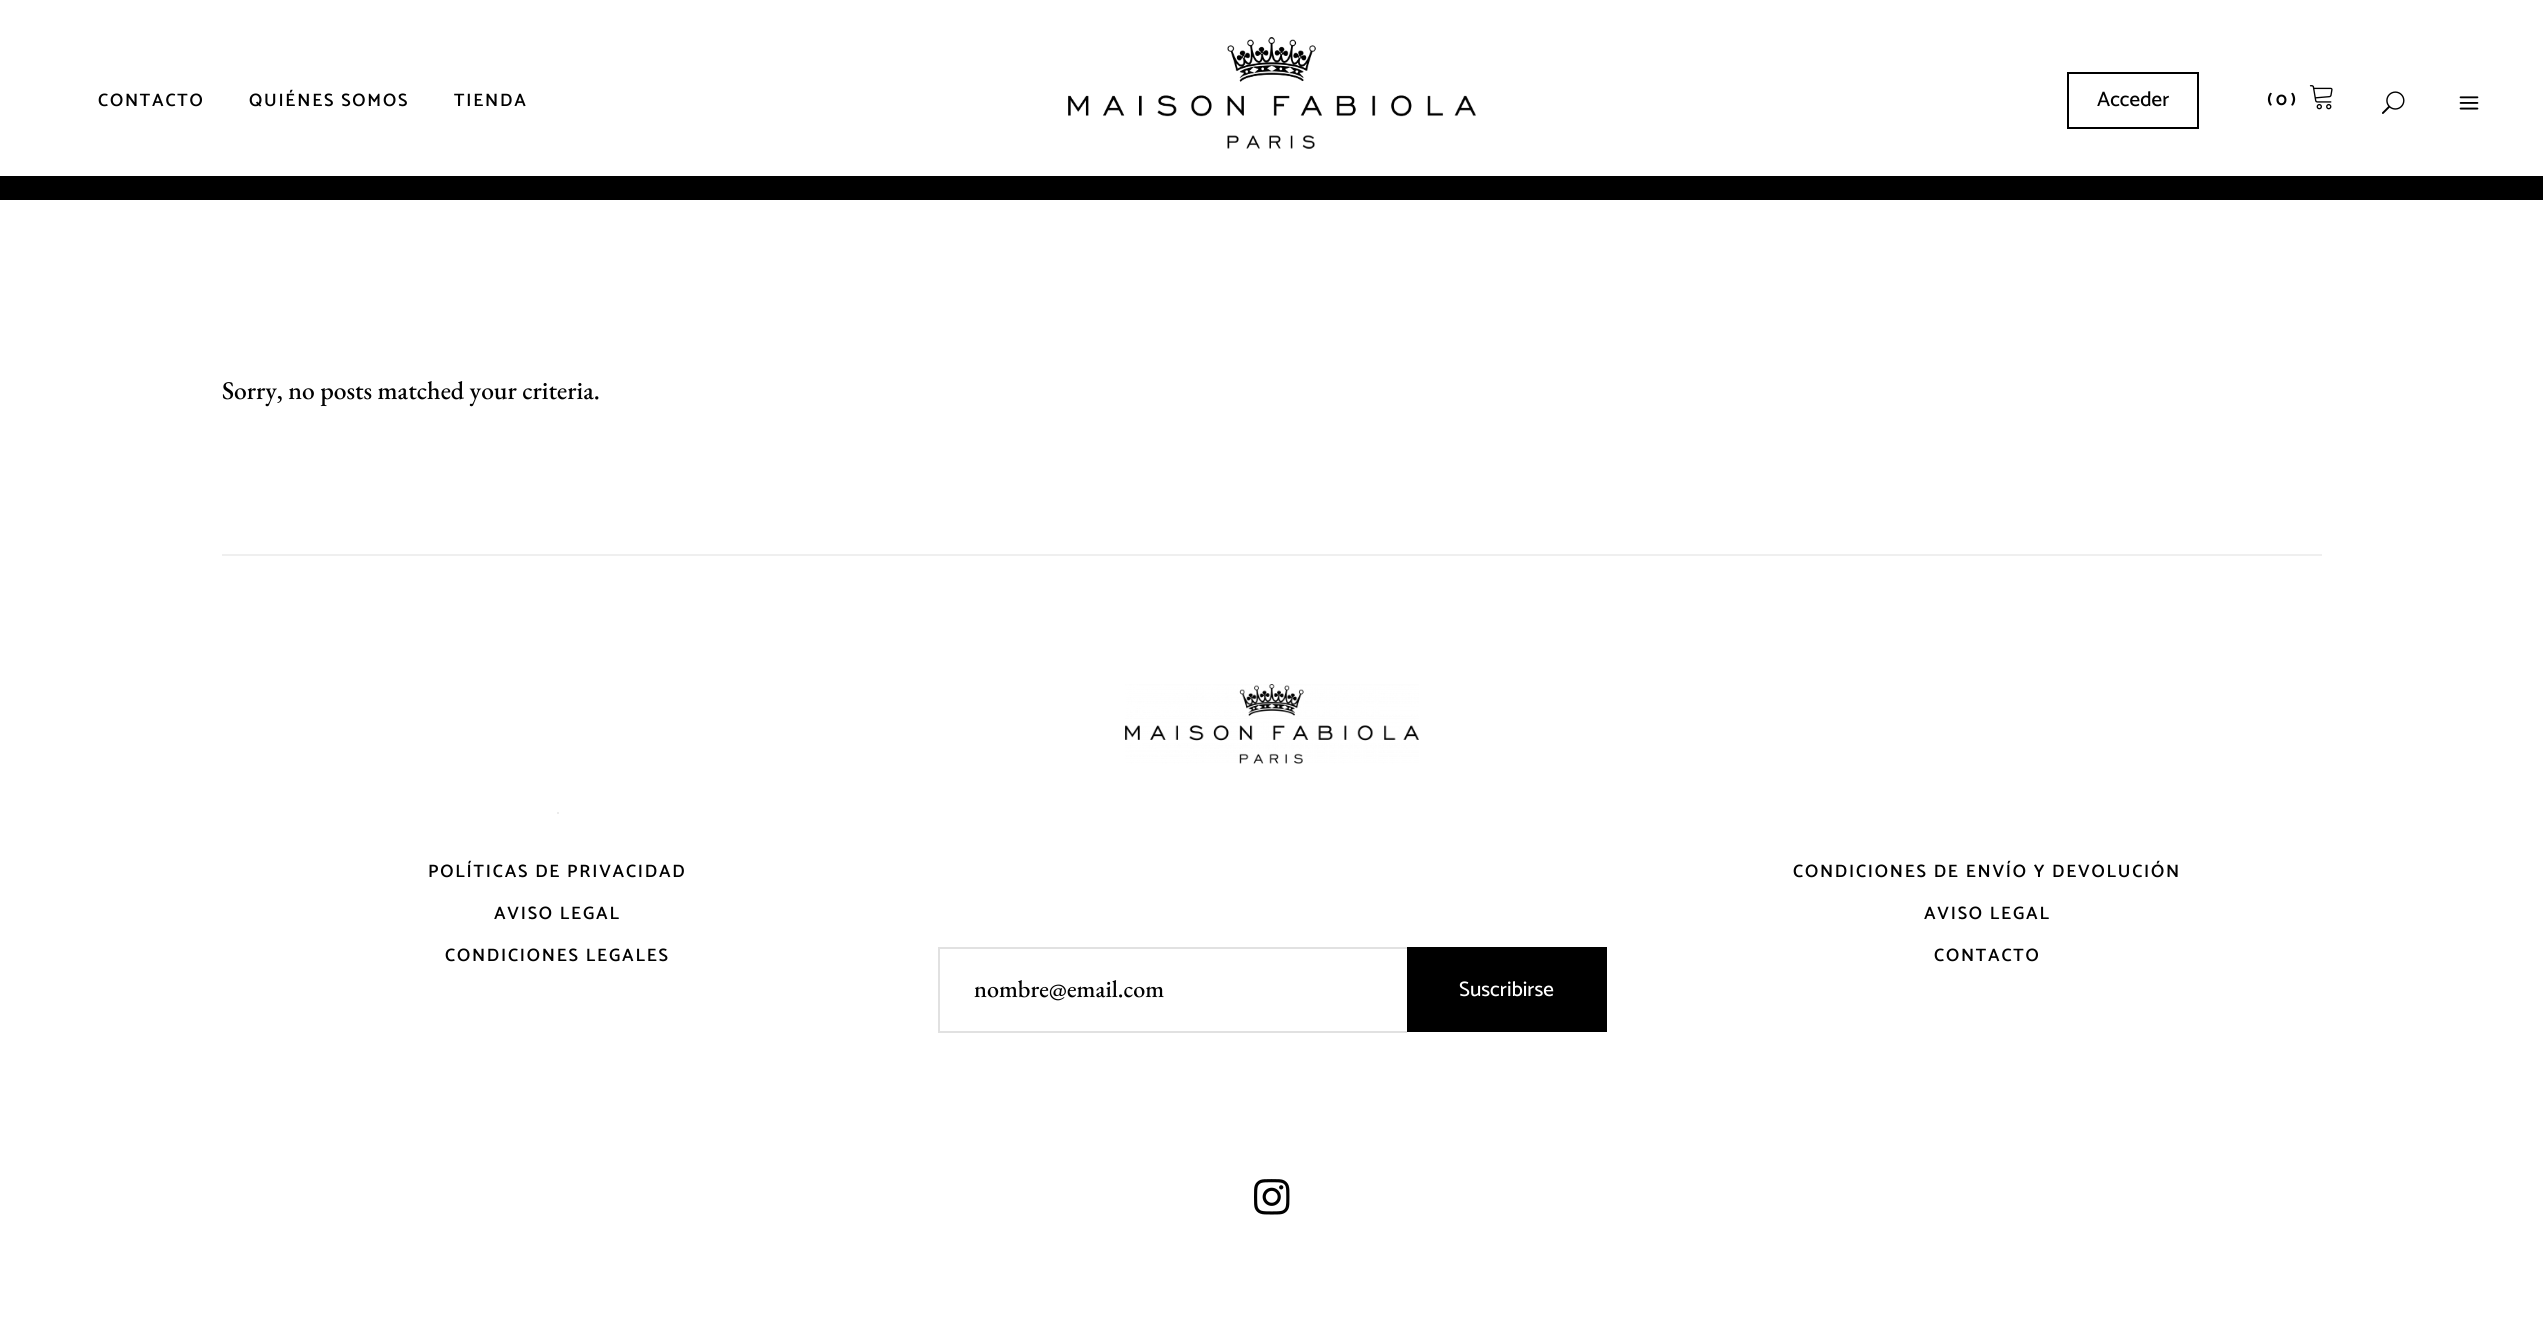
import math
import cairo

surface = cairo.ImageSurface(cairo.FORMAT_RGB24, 2543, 1327)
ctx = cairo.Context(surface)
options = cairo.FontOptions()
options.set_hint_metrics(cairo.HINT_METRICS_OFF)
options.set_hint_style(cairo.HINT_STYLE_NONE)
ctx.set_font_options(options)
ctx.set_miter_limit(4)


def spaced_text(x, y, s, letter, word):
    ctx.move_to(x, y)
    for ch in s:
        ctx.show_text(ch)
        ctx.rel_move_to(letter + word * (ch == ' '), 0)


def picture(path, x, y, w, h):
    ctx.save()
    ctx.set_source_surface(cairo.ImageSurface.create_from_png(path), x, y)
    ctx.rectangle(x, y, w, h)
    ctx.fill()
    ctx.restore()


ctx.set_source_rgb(1, 1, 1)
ctx.paint()
picture("img1.png", 1068, 37, 408, 112)
ctx.select_font_face("Catamaran SemiBold")
ctx.set_font_size(18)
ctx.set_source_rgb(0.004, 0.004, 0.004)
spaced_text(98, 106, "CONTACTO", 1.8, 0)
spaced_text(249, 106, "QUIÉNES SOMOS", 1.8, 0)
spaced_text(454, 106, "TIENDA", 1.8, 0)
ctx.rectangle(2068, 73, 130, 55)
ctx.set_source_rgb(0, 0, 0)
ctx.stroke()
ctx.select_font_face("Catamaran Medium")
ctx.set_font_size(21)
ctx.set_source_rgb(0.004, 0.004, 0.004)
ctx.move_to(2097, 106)
ctx.show_text("Acceder")
ctx.select_font_face("Catamaran", cairo.FONT_SLANT_NORMAL, cairo.FONT_WEIGHT_BOLD)
ctx.set_font_size(18)
spaced_text(2267, 105, "(0)", 3.5, 0)
picture("img2.png", 2309, 85, 24, 25)
picture("img3.png", 2382, 91, 23, 23)
picture("img4.png", 2459, 96, 20, 14)
ctx.set_source_rgb(0, 0, 0)
ctx.rectangle(0, 176, 2543, 24)
ctx.fill()
ctx.select_font_face("EB Garamond Medium")
ctx.set_font_size(25.5)
ctx.set_source_rgb(0.004, 0.004, 0.004)
ctx.move_to(222, 399)
ctx.show_text("Sorry, no posts matched your criteria.")
ctx.set_source_rgb(0.937, 0.937, 0.937)
ctx.rectangle(222, 554, 2100, 2)
ctx.fill()
ctx.set_source_rgb(0.922, 0.922, 0.922)
ctx.rectangle(557, 812, 2, 2)
ctx.fill()
ctx.select_font_face("Catamaran SemiBold")
ctx.set_font_size(18)
ctx.set_source_rgb(0.004, 0.004, 0.004)
spaced_text(428, 877, "POLÍTICAS DE PRIVACIDAD", 1.8, 0)
spaced_text(494, 919, "AVISO LEGAL", 1.8, 0)
spaced_text(445, 961, "CONDICIONES LEGALES", 1.8, 0)
spaced_text(1793, 877, "CONDICIONES DE ENVÍO Y DEVOLUCIÓN", 1.8, 0)
spaced_text(1924, 919, "AVISO LEGAL", 1.8, 0)
spaced_text(1934, 961, "CONTACTO", 1.8, 0)
picture("img5.png", 1125, 684, 294, 80)
ctx.set_source_rgb(0.882, 0.882, 0.882)
ctx.rectangle(938, 947, 469, 2)
ctx.fill()
ctx.rectangle(938, 1031, 469, 2)
ctx.fill()
ctx.rectangle(938, 947, 2, 85)
ctx.fill()
ctx.select_font_face("EB Garamond Medium")
ctx.set_font_size(24)
ctx.set_source_rgb(0.004, 0.004, 0.004)
ctx.move_to(974, 997)
ctx.show_text("nombre@email.com")
ctx.set_source_rgb(0, 0, 0)
ctx.rectangle(1407, 947, 200, 85)
ctx.fill()
ctx.select_font_face("Catamaran Medium")
ctx.set_font_size(21)
ctx.set_source_rgb(1, 1, 1)
ctx.move_to(1459, 996)
ctx.show_text("Suscribirse")
picture("img6.png", 1254, 1179, 36, 36)
surface.write_to_png("page.png")
